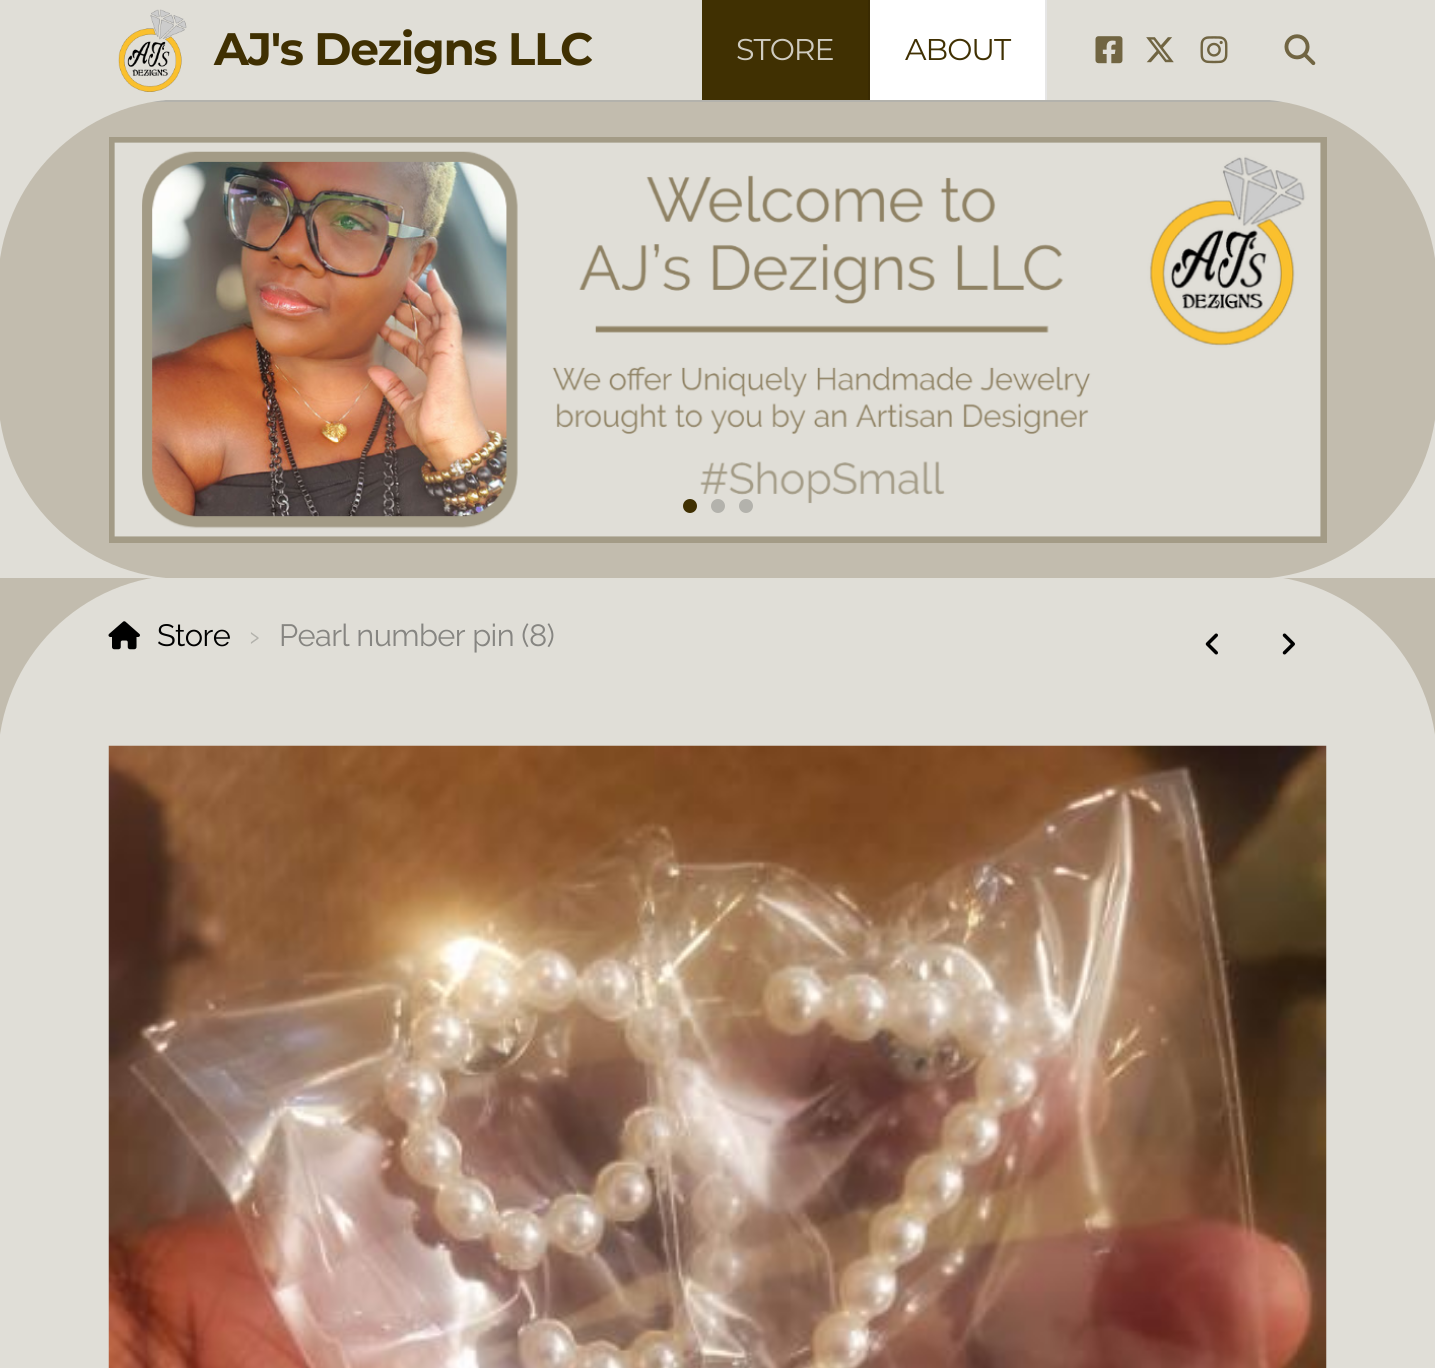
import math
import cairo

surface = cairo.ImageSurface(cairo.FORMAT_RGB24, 1435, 1368)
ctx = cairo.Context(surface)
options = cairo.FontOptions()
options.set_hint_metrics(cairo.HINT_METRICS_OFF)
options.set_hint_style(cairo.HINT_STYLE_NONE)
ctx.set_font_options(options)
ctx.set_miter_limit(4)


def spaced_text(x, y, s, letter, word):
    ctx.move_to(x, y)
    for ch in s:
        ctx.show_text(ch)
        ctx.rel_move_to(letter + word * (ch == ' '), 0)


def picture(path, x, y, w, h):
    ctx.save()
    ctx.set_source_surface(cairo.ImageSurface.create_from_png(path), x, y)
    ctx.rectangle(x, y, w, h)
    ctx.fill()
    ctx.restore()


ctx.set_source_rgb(0.761, 0.737, 0.682)
ctx.paint()
ctx.set_source_rgb(0.878, 0.871, 0.843)
ctx.rectangle(0, 0, 1435, 100)
ctx.fill()
ctx.set_source_rgb(0.702, 0.698, 0.675)
ctx.rectangle(0, 100, 1435, 2)
ctx.fill()
picture("img1.png", 118, 9, 69, 83)
ctx.select_font_face("Montserrat", cairo.FONT_SLANT_NORMAL, cairo.FONT_WEIGHT_BOLD)
ctx.set_font_size(45.5)
ctx.set_source_rgb(0.251, 0.188, 0.008)
spaced_text(214, 65, "AJ's Dezigns LLC", -1.4, 0)
ctx.rectangle(702, 0, 166, 100)
ctx.fill()
ctx.set_source_rgb(0.227, 0.169, 0.008)
ctx.rectangle(868, 0, 2, 100)
ctx.fill()
ctx.select_font_face("Montserrat")
ctx.set_font_size(30)
ctx.set_source_rgb(0.812, 0.796, 0.753)
spaced_text(736, 60, "STORE", -1, 0)
ctx.set_source_rgb(1, 1, 1)
ctx.rectangle(870, 0, 175, 100)
ctx.fill()
ctx.set_source_rgb(0.902, 0.902, 0.902)
ctx.rectangle(1045, 0, 2, 100)
ctx.fill()
ctx.set_source_rgb(0.251, 0.188, 0.008)
spaced_text(905, 60, "ABOUT", -1, 0)
picture("img2.png", 1095, 36, 28, 28)
picture("img3.png", 1146, 37, 28, 26)
picture("img4.png", 1200, 36, 28, 28)
picture("img5.png", 1284, 34, 32, 32)
ctx.set_source_rgb(0.878, 0.871, 0.843)
ctx.new_path()
ctx.move_to(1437, 99)
ctx.line_to(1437, 286)
ctx.curve_to(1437, 183, 1353, 99, 1250, 99)
ctx.close_path()
ctx.move_to(185, 99)
ctx.curve_to(82, 99, -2, 183, -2, 286)
ctx.line_to(-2, 99)
ctx.close_path()
ctx.fill()
ctx.save()
ctx.rectangle(0, 392, 1435, 186)
ctx.clip()
ctx.new_path()
ctx.move_to(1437, 579)
ctx.line_to(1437, 392)
ctx.curve_to(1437, 496, 1353, 579, 1250, 579)
ctx.close_path()
ctx.move_to(185, 579)
ctx.curve_to(82, 579, -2, 496, -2, 392)
ctx.line_to(-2, 579)
ctx.close_path()
ctx.fill()
ctx.restore()
picture("img6.png", 109, 137, 1218, 406)
ctx.set_source_rgb(0.251, 0.188, 0.008)
ctx.arc(690, 506, 7, 0, 2 * math.pi)
ctx.fill()
ctx.set_source_rgb(0.702, 0.698, 0.675)
ctx.arc(718, 506, 7, 0, 2 * math.pi)
ctx.fill()
ctx.arc(746, 506, 7, 0, 2 * math.pi)
ctx.fill()
ctx.set_source_rgb(0.878, 0.871, 0.843)
ctx.rectangle(0, 578, 1435, 790)
ctx.fill()
ctx.save()
ctx.rectangle(0, 578, 1435, 185)
ctx.clip()
ctx.set_source_rgb(0.761, 0.737, 0.682)
ctx.new_path()
ctx.move_to(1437, 575)
ctx.line_to(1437, 762)
ctx.curve_to(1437, 659, 1353, 575, 1250, 575)
ctx.close_path()
ctx.move_to(185, 575)
ctx.curve_to(82, 575, -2, 659, -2, 762)
ctx.line_to(-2, 575)
ctx.close_path()
ctx.fill()
ctx.restore()
picture("img7.png", 108, 621, 32, 29)
ctx.select_font_face("Raleway")
ctx.set_font_size(30.75)
ctx.set_source_rgb(0, 0, 0)
spaced_text(157, 646, "Store", -0.6, 0)
ctx.set_source_rgb(0.702, 0.698, 0.675)
spaced_text(249, 646, "›", -0.6, 0)
ctx.set_source_rgb(0.525, 0.522, 0.506)
spaced_text(279, 646, "Pearl number pin (8)", -0.6, 0)
picture("img8.png", 1205, 633, 13, 22)
picture("img9.png", 1282, 633, 13, 22)
picture("img10.png", 108, 745, 1219, 623)
surface.write_to_png("page.png")
